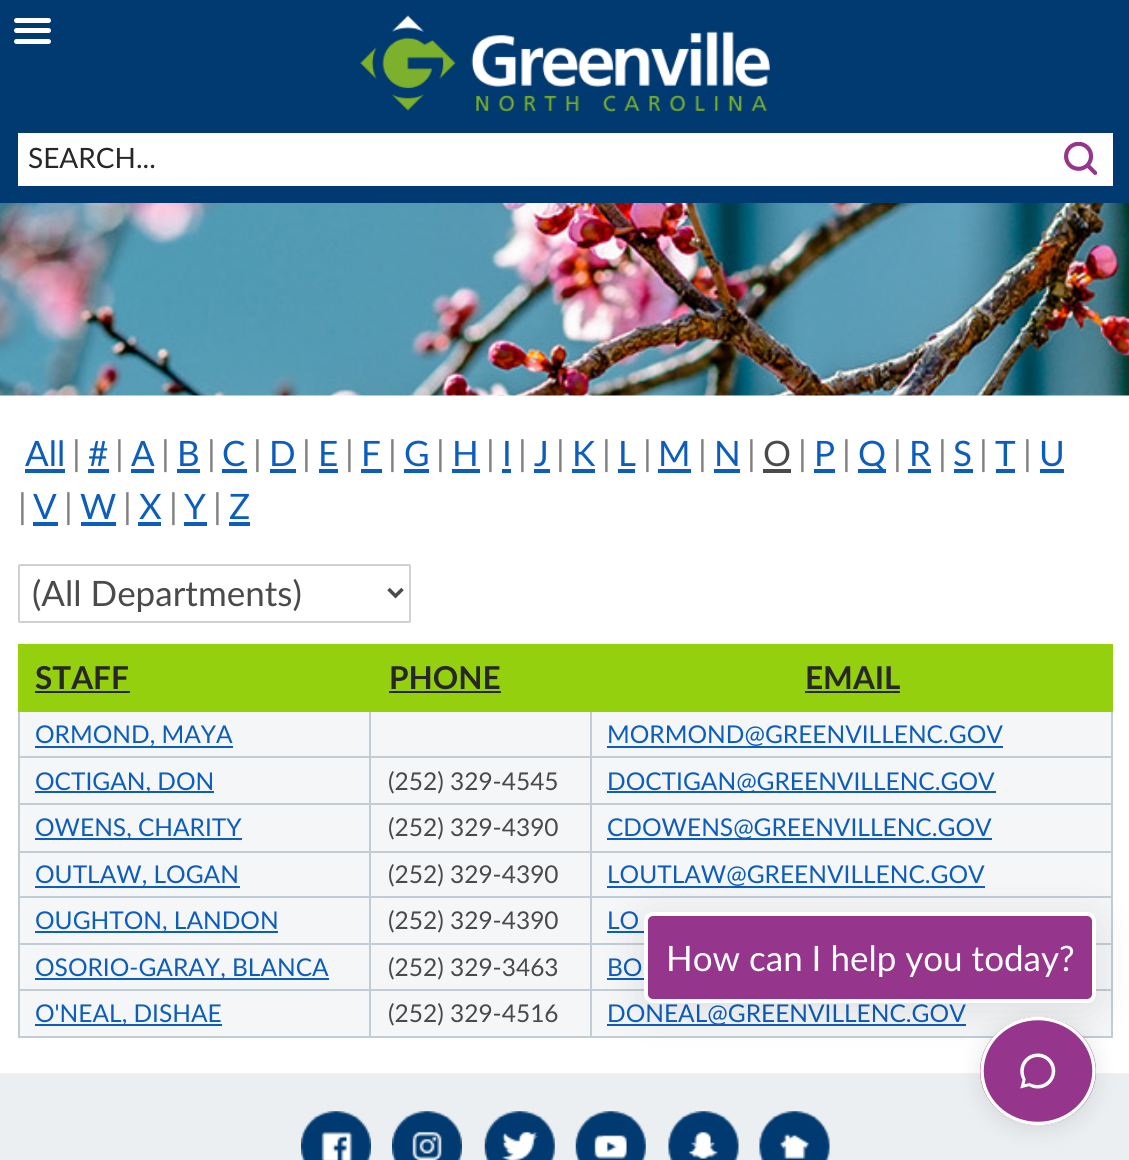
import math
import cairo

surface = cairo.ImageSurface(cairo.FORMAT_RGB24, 1129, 1160)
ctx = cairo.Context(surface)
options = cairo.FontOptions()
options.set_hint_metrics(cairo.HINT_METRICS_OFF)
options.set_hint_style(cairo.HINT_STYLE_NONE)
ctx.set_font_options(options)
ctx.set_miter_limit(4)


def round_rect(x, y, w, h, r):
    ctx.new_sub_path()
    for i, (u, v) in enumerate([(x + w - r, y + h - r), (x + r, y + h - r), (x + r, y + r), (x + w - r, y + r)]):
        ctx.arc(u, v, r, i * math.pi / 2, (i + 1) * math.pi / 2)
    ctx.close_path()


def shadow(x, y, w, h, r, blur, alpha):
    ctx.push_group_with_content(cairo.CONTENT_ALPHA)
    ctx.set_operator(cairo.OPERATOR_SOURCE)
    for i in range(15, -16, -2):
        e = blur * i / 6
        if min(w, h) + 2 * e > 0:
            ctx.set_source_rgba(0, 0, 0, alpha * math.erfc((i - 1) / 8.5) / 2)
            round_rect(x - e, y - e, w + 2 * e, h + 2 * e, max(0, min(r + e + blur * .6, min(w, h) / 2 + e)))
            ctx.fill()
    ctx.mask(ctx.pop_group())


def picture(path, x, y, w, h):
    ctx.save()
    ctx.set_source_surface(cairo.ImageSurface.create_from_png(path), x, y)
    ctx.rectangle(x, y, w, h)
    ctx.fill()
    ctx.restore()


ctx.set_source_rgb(1, 1, 1)
ctx.paint()
ctx.set_source_rgb(0, 0.227, 0.439)
ctx.rectangle(0, 0, 1129, 203)
ctx.fill()
ctx.set_source_rgb(1, 1, 1)
round_rect(14, 28, 37, 5, 2.5)
ctx.fill()
round_rect(15, 19, 35, 3, 1.5)
ctx.fill_preserve()
ctx.stroke()
round_rect(15, 40, 35, 3, 1.5)
ctx.fill_preserve()
ctx.stroke()
picture("img1.png", 360, 15, 410, 97)
ctx.rectangle(18, 133, 1095, 53)
ctx.fill()
ctx.select_font_face("Lato")
ctx.set_font_size(28)
ctx.set_source_rgb(0.153, 0.153, 0.153)
ctx.move_to(28, 168)
ctx.show_text("SEARCH...")
picture("img2.png", 1064, 142, 33, 33)
ctx.set_source_rgb(0.941, 0.941, 0.941)
ctx.rectangle(0, 1073, 1129, 2)
ctx.fill()
picture("img3.png", 0, 203, 1129, 193)
ctx.set_font_size(35)
ctx.set_source_rgb(0.051, 0.365, 0.737)
ctx.move_to(25, 466)
ctx.show_text("All")
ctx.rectangle(25, 469, 40, 4)
ctx.fill()
ctx.set_source_rgb(0.502, 0.502, 0.502)
ctx.move_to(72, 466)
ctx.show_text("|")
ctx.set_source_rgb(0.051, 0.365, 0.737)
ctx.move_to(88, 466)
ctx.show_text("#")
ctx.rectangle(88, 469, 21, 4)
ctx.fill()
ctx.set_source_rgb(0.502, 0.502, 0.502)
ctx.move_to(115, 466)
ctx.show_text("|")
ctx.set_source_rgb(0.051, 0.365, 0.737)
ctx.move_to(131, 466)
ctx.show_text("A")
ctx.rectangle(131, 469, 23, 4)
ctx.fill()
ctx.set_source_rgb(0.502, 0.502, 0.502)
ctx.move_to(161, 466)
ctx.show_text("|")
ctx.set_source_rgb(0.051, 0.365, 0.737)
ctx.move_to(177, 466)
ctx.show_text("B")
ctx.rectangle(177, 469, 23, 4)
ctx.fill()
ctx.set_source_rgb(0.502, 0.502, 0.502)
ctx.move_to(207, 466)
ctx.show_text("|")
ctx.set_source_rgb(0.051, 0.365, 0.737)
ctx.move_to(222, 466)
ctx.show_text("C")
ctx.rectangle(222, 469, 25, 4)
ctx.fill()
ctx.set_source_rgb(0.502, 0.502, 0.502)
ctx.move_to(253, 466)
ctx.show_text("|")
ctx.set_source_rgb(0.051, 0.365, 0.737)
ctx.move_to(269, 466)
ctx.show_text("D")
ctx.rectangle(270, 469, 26, 4)
ctx.fill()
ctx.set_source_rgb(0.502, 0.502, 0.502)
ctx.move_to(302, 466)
ctx.show_text("|")
ctx.set_source_rgb(0.051, 0.365, 0.737)
ctx.move_to(318, 466)
ctx.show_text("E")
ctx.rectangle(319, 469, 19, 4)
ctx.fill()
ctx.set_source_rgb(0.502, 0.502, 0.502)
ctx.move_to(345, 466)
ctx.show_text("|")
ctx.set_source_rgb(0.051, 0.365, 0.737)
ctx.move_to(361, 466)
ctx.show_text("F")
ctx.rectangle(361, 469, 21, 4)
ctx.fill()
ctx.set_source_rgb(0.502, 0.502, 0.502)
ctx.move_to(388, 466)
ctx.show_text("|")
ctx.set_source_rgb(0.051, 0.365, 0.737)
ctx.move_to(404, 466)
ctx.show_text("G")
ctx.rectangle(404, 469, 25, 4)
ctx.fill()
ctx.set_source_rgb(0.502, 0.502, 0.502)
ctx.move_to(436, 466)
ctx.show_text("|")
ctx.set_source_rgb(0.051, 0.365, 0.737)
ctx.move_to(452, 466)
ctx.show_text("H")
ctx.rectangle(452, 469, 28, 4)
ctx.fill()
ctx.set_source_rgb(0.502, 0.502, 0.502)
ctx.move_to(486, 466)
ctx.show_text("|")
ctx.set_source_rgb(0.051, 0.365, 0.737)
ctx.move_to(502, 466)
ctx.show_text("I")
ctx.rectangle(502, 469, 9, 4)
ctx.fill()
ctx.set_source_rgb(0.502, 0.502, 0.502)
ctx.move_to(518, 466)
ctx.show_text("|")
ctx.set_source_rgb(0.051, 0.365, 0.737)
ctx.move_to(534, 466)
ctx.show_text("J")
ctx.rectangle(534, 469, 16, 4)
ctx.fill()
ctx.set_source_rgb(0.502, 0.502, 0.502)
ctx.move_to(556, 466)
ctx.show_text("|")
ctx.set_source_rgb(0.051, 0.365, 0.737)
ctx.move_to(572, 466)
ctx.show_text("K")
ctx.rectangle(572, 469, 23, 4)
ctx.fill()
ctx.set_source_rgb(0.502, 0.502, 0.502)
ctx.move_to(602, 466)
ctx.show_text("|")
ctx.set_source_rgb(0.051, 0.365, 0.737)
ctx.move_to(618, 466)
ctx.show_text("L")
ctx.rectangle(618, 469, 17, 4)
ctx.fill()
ctx.set_source_rgb(0.502, 0.502, 0.502)
ctx.move_to(643, 466)
ctx.show_text("|")
ctx.set_source_rgb(0.051, 0.365, 0.737)
ctx.move_to(658, 466)
ctx.show_text("M")
ctx.rectangle(658, 469, 33, 4)
ctx.fill()
ctx.set_source_rgb(0.502, 0.502, 0.502)
ctx.move_to(698, 466)
ctx.show_text("|")
ctx.set_source_rgb(0.051, 0.365, 0.737)
ctx.move_to(714, 466)
ctx.show_text("N")
ctx.rectangle(714, 469, 26, 4)
ctx.fill()
ctx.set_source_rgb(0.502, 0.502, 0.502)
ctx.move_to(747, 466)
ctx.show_text("|")
ctx.set_source_rgb(0.29, 0.29, 0.29)
ctx.move_to(763, 466)
ctx.show_text("O")
ctx.rectangle(763, 469, 28, 4)
ctx.fill()
ctx.set_source_rgb(0.502, 0.502, 0.502)
ctx.move_to(798, 466)
ctx.show_text("|")
ctx.set_source_rgb(0.051, 0.365, 0.737)
ctx.move_to(814, 466)
ctx.show_text("P")
ctx.rectangle(814, 469, 21, 4)
ctx.fill()
ctx.set_source_rgb(0.502, 0.502, 0.502)
ctx.move_to(842, 466)
ctx.show_text("|")
ctx.set_source_rgb(0.051, 0.365, 0.737)
ctx.rectangle(858, 469, 28, 4)
ctx.fill()
ctx.move_to(858, 466)
ctx.show_text("Q")
ctx.set_source_rgb(0.502, 0.502, 0.502)
ctx.move_to(893, 466)
ctx.show_text("|")
ctx.set_source_rgb(0.051, 0.365, 0.737)
ctx.move_to(909, 466)
ctx.show_text("R")
ctx.rectangle(908, 469, 23, 4)
ctx.fill()
ctx.set_source_rgb(0.502, 0.502, 0.502)
ctx.move_to(938, 466)
ctx.show_text("|")
ctx.set_source_rgb(0.051, 0.365, 0.737)
ctx.move_to(953, 466)
ctx.show_text("S")
ctx.rectangle(954, 469, 19, 4)
ctx.fill()
ctx.set_source_rgb(0.502, 0.502, 0.502)
ctx.move_to(979, 466)
ctx.show_text("|")
ctx.set_source_rgb(0.051, 0.365, 0.737)
ctx.move_to(995, 466)
ctx.show_text("T")
ctx.rectangle(996, 469, 19, 4)
ctx.fill()
ctx.set_source_rgb(0.502, 0.502, 0.502)
ctx.move_to(1023, 466)
ctx.show_text("|")
ctx.set_source_rgb(0.051, 0.365, 0.737)
ctx.move_to(1039, 466)
ctx.show_text("U")
ctx.rectangle(1040, 469, 24, 4)
ctx.fill()
ctx.set_source_rgb(0.502, 0.502, 0.502)
ctx.move_to(18, 519)
ctx.show_text("|")
ctx.set_source_rgb(0.051, 0.365, 0.737)
ctx.move_to(33, 519)
ctx.show_text("V")
ctx.rectangle(33, 522, 25, 4)
ctx.fill()
ctx.set_source_rgb(0.502, 0.502, 0.502)
ctx.move_to(64, 519)
ctx.show_text("|")
ctx.set_source_rgb(0.051, 0.365, 0.737)
ctx.move_to(80, 519)
ctx.show_text("W")
ctx.rectangle(81, 522, 35, 4)
ctx.fill()
ctx.set_source_rgb(0.502, 0.502, 0.502)
ctx.move_to(123, 519)
ctx.show_text("|")
ctx.set_source_rgb(0.051, 0.365, 0.737)
ctx.move_to(139, 519)
ctx.show_text("X")
ctx.rectangle(138, 522, 23, 4)
ctx.fill()
ctx.set_source_rgb(0.502, 0.502, 0.502)
ctx.move_to(169, 519)
ctx.show_text("|")
ctx.set_source_rgb(0.051, 0.365, 0.737)
ctx.move_to(184, 519)
ctx.show_text("Y")
ctx.rectangle(184, 522, 23, 4)
ctx.fill()
ctx.set_source_rgb(0.502, 0.502, 0.502)
ctx.move_to(213, 519)
ctx.show_text("|")
ctx.set_source_rgb(0.051, 0.365, 0.737)
ctx.move_to(229, 519)
ctx.show_text("Z")
ctx.rectangle(229, 522, 21, 4)
ctx.fill()
round_rect(19, 565, 391, 57, 1)
ctx.set_source_rgb(0.816, 0.816, 0.816)
ctx.stroke()
ctx.new_path()
ctx.move_to(388.5, 589)
ctx.line_to(395.5, 596)
ctx.line_to(402.5, 589)
ctx.set_source_rgb(0.29, 0.29, 0.29)
ctx.set_line_width(3.5)
ctx.stroke()
ctx.move_to(32, 606)
ctx.show_text("(All Departments)")
ctx.set_source_rgb(0.957, 0.961, 0.969)
ctx.rectangle(20, 712, 1091, 324)
ctx.fill()
ctx.set_source_rgb(0.58, 0.816, 0.051)
ctx.rectangle(18, 644, 1095, 68)
ctx.fill()
ctx.select_font_face("Lato", cairo.FONT_SLANT_NORMAL, cairo.FONT_WEIGHT_BOLD)
ctx.set_font_size(31.5)
ctx.set_source_rgb(0.153, 0.153, 0.153)
ctx.move_to(35, 689)
ctx.show_text("STAFF")
ctx.rectangle(35, 691, 95, 2)
ctx.fill()
ctx.move_to(389, 689)
ctx.show_text("PHONE")
ctx.rectangle(389, 691, 112, 2)
ctx.fill()
ctx.move_to(805, 689)
ctx.show_text("EMAIL")
ctx.rectangle(805, 691, 95, 2)
ctx.fill()
ctx.set_source_rgb(0.757, 0.8, 0.835)
ctx.rectangle(369, 712, 2, 140)
ctx.fill()
ctx.rectangle(18, 756, 353, 2)
ctx.fill()
ctx.rectangle(18, 712, 2, 46)
ctx.fill()
ctx.set_source_rgb(0.051, 0.365, 0.737)
ctx.rectangle(35, 746, 198, 2)
ctx.fill()
ctx.select_font_face("Lato")
ctx.set_font_size(24.5)
ctx.move_to(35, 743)
ctx.show_text("ORMOND, MAYA")
ctx.set_source_rgb(0.757, 0.8, 0.835)
ctx.rectangle(590, 712, 2, 140)
ctx.fill()
ctx.rectangle(371, 756, 221, 2)
ctx.fill()
ctx.rectangle(1111, 712, 2, 140)
ctx.fill()
ctx.rectangle(592, 756, 521, 2)
ctx.fill()
ctx.set_source_rgb(0.051, 0.365, 0.737)
ctx.move_to(607, 743)
ctx.show_text("MORMOND@GREENVILLENC.GOV")
ctx.rectangle(607, 746, 396, 2)
ctx.fill()
ctx.set_source_rgb(0.757, 0.8, 0.835)
ctx.rectangle(18, 803, 1095, 2)
ctx.fill()
ctx.rectangle(18, 758, 2, 47)
ctx.fill()
ctx.set_source_rgb(0.051, 0.365, 0.737)
ctx.rectangle(35, 791, 179, 2)
ctx.fill()
ctx.move_to(35, 790)
ctx.show_text("OCTIGAN, DON")
ctx.set_source_rgb(0.29, 0.29, 0.29)
ctx.move_to(388, 790)
ctx.show_text("(252) 329-4545")
ctx.set_source_rgb(0.051, 0.365, 0.737)
ctx.rectangle(607, 791, 389, 2)
ctx.fill()
ctx.move_to(607, 790)
ctx.show_text("DOCTIGAN@GREENVILLENC.GOV")
ctx.set_source_rgb(0.757, 0.8, 0.835)
ctx.rectangle(18, 851, 1095, 2)
ctx.fill()
ctx.rectangle(18, 805, 2, 47)
ctx.fill()
ctx.set_source_rgb(0.051, 0.365, 0.737)
ctx.rectangle(35, 838, 207, 2)
ctx.fill()
ctx.move_to(35, 836)
ctx.show_text("OWENS, CHARITY")
ctx.set_source_rgb(0.29, 0.29, 0.29)
ctx.move_to(388, 836)
ctx.show_text("(252) 329-4390")
ctx.set_source_rgb(0.051, 0.365, 0.737)
ctx.rectangle(607, 838, 385, 2)
ctx.fill()
ctx.move_to(607, 836)
ctx.show_text("CDOWENS@GREENVILLENC.GOV")
ctx.set_source_rgb(0.757, 0.8, 0.835)
ctx.rectangle(369, 852, 2, 186)
ctx.fill()
ctx.rectangle(18, 896, 353, 2)
ctx.fill()
ctx.rectangle(18, 852, 2, 46)
ctx.fill()
ctx.set_source_rgb(0.051, 0.365, 0.737)
ctx.rectangle(35, 886, 205, 2)
ctx.fill()
ctx.move_to(35, 883)
ctx.show_text("OUTLAW, LOGAN")
ctx.set_source_rgb(0.757, 0.8, 0.835)
ctx.rectangle(590, 852, 2, 186)
ctx.fill()
ctx.rectangle(371, 896, 221, 2)
ctx.fill()
ctx.set_source_rgb(0.29, 0.29, 0.29)
ctx.move_to(388, 883)
ctx.show_text("(252) 329-4390")
ctx.set_source_rgb(0.757, 0.8, 0.835)
ctx.rectangle(1111, 852, 2, 186)
ctx.fill()
ctx.rectangle(592, 896, 521, 2)
ctx.fill()
ctx.set_source_rgb(0.051, 0.365, 0.737)
ctx.move_to(607, 883)
ctx.show_text("LOUTLAW@GREENVILLENC.GOV")
ctx.rectangle(607, 886, 378, 2)
ctx.fill()
ctx.set_source_rgb(0.757, 0.8, 0.835)
ctx.rectangle(18, 943, 1095, 2)
ctx.fill()
ctx.rectangle(18, 898, 2, 47)
ctx.fill()
ctx.set_source_rgb(0.051, 0.365, 0.737)
ctx.rectangle(35, 931, 243, 2)
ctx.fill()
ctx.move_to(35, 929)
ctx.show_text("OUGHTON, LANDON")
ctx.set_source_rgb(0.29, 0.29, 0.29)
ctx.move_to(388, 929)
ctx.show_text("(252) 329-4390")
ctx.set_source_rgb(0.051, 0.365, 0.737)
ctx.move_to(607, 929)
ctx.show_text("LO")
ctx.rectangle(607, 931, 37, 2)
ctx.fill()
ctx.set_source_rgb(0.757, 0.8, 0.835)
ctx.rectangle(18, 989, 1095, 2)
ctx.fill()
ctx.rectangle(18, 945, 2, 46)
ctx.fill()
ctx.set_source_rgb(0.051, 0.365, 0.737)
ctx.rectangle(35, 978, 294, 2)
ctx.fill()
ctx.move_to(35, 976)
ctx.show_text("OSORIO-GARAY, BLANCA")
ctx.set_source_rgb(0.29, 0.29, 0.29)
ctx.move_to(388, 976)
ctx.show_text("(252) 329-3463")
ctx.set_source_rgb(0.051, 0.365, 0.737)
ctx.move_to(607, 976)
ctx.show_text("BO")
ctx.rectangle(607, 978, 37, 2)
ctx.fill()
ctx.set_source_rgb(0.757, 0.8, 0.835)
ctx.rectangle(18, 1036, 1095, 2)
ctx.fill()
ctx.rectangle(18, 991, 2, 47)
ctx.fill()
ctx.set_source_rgb(0.051, 0.365, 0.737)
ctx.rectangle(35, 1024, 187, 2)
ctx.fill()
ctx.move_to(35, 1022)
ctx.show_text("O'NEAL, DISHAE")
ctx.set_source_rgb(0.29, 0.29, 0.29)
ctx.move_to(388, 1022)
ctx.show_text("(252) 329-4516")
ctx.set_source_rgb(0.051, 0.365, 0.737)
ctx.rectangle(607, 1024, 359, 2)
ctx.fill()
ctx.move_to(607, 1022)
ctx.show_text("DONEAL@GREENVILLENC.GOV")
ctx.set_source_rgb(0.925, 0.937, 0.945)
ctx.rectangle(0, 1075, 1129, 85)
ctx.fill()
picture("img4.png", 301, 1111, 70, 49)
picture("img5.png", 392, 1111, 70, 49)
picture("img6.png", 484, 1111, 71, 49)
picture("img7.png", 575, 1111, 71, 49)
picture("img8.png", 668, 1111, 71, 49)
picture("img9.png", 759, 1111, 71, 49)
ctx.set_source_rgb(0, 0, 0)
shadow(644, 919, 452, 91, 9, 21, 0.1)
ctx.set_source_rgb(0.584, 0.208, 0.549)
round_rect(646, 914, 448, 87, 7)
ctx.fill_preserve()
ctx.set_source_rgb(1, 1, 1)
ctx.set_line_width(4)
ctx.stroke()
ctx.set_font_size(35)
ctx.move_to(666, 971)
ctx.show_text("How can I help you today?")
ctx.set_source_rgb(0, 0, 0)
shadow(980, 1020, 116, 109, 54.5, 10.5, 0.1)
ctx.set_source_rgb(0.584, 0.208, 0.549)
ctx.new_path()
ctx.move_to(1038, 1017)
ctx.curve_to(1070, 1017, 1096, 1041, 1096, 1071)
ctx.curve_to(1096, 1101, 1070, 1125, 1038, 1125)
ctx.curve_to(1006, 1125, 980, 1101, 980, 1071)
ctx.curve_to(980, 1041, 1006, 1017, 1038, 1017)
ctx.close_path()
ctx.fill()
ctx.new_path()
ctx.move_to(1038, 1018.5)
ctx.curve_to(1068.5, 1018.5, 1094, 1042, 1094, 1071)
ctx.curve_to(1094, 1100, 1068.5, 1123.5, 1038, 1123.5)
ctx.curve_to(1007, 1123.5, 982, 1100, 982, 1071)
ctx.curve_to(982, 1042, 1007, 1018.5, 1038, 1018.5)
ctx.close_path()
ctx.set_source_rgb(1, 1, 1)
ctx.set_line_width(3.5)
ctx.stroke()
picture("img10.png", 1020, 1053, 36, 36)
surface.write_to_png("page.png")
